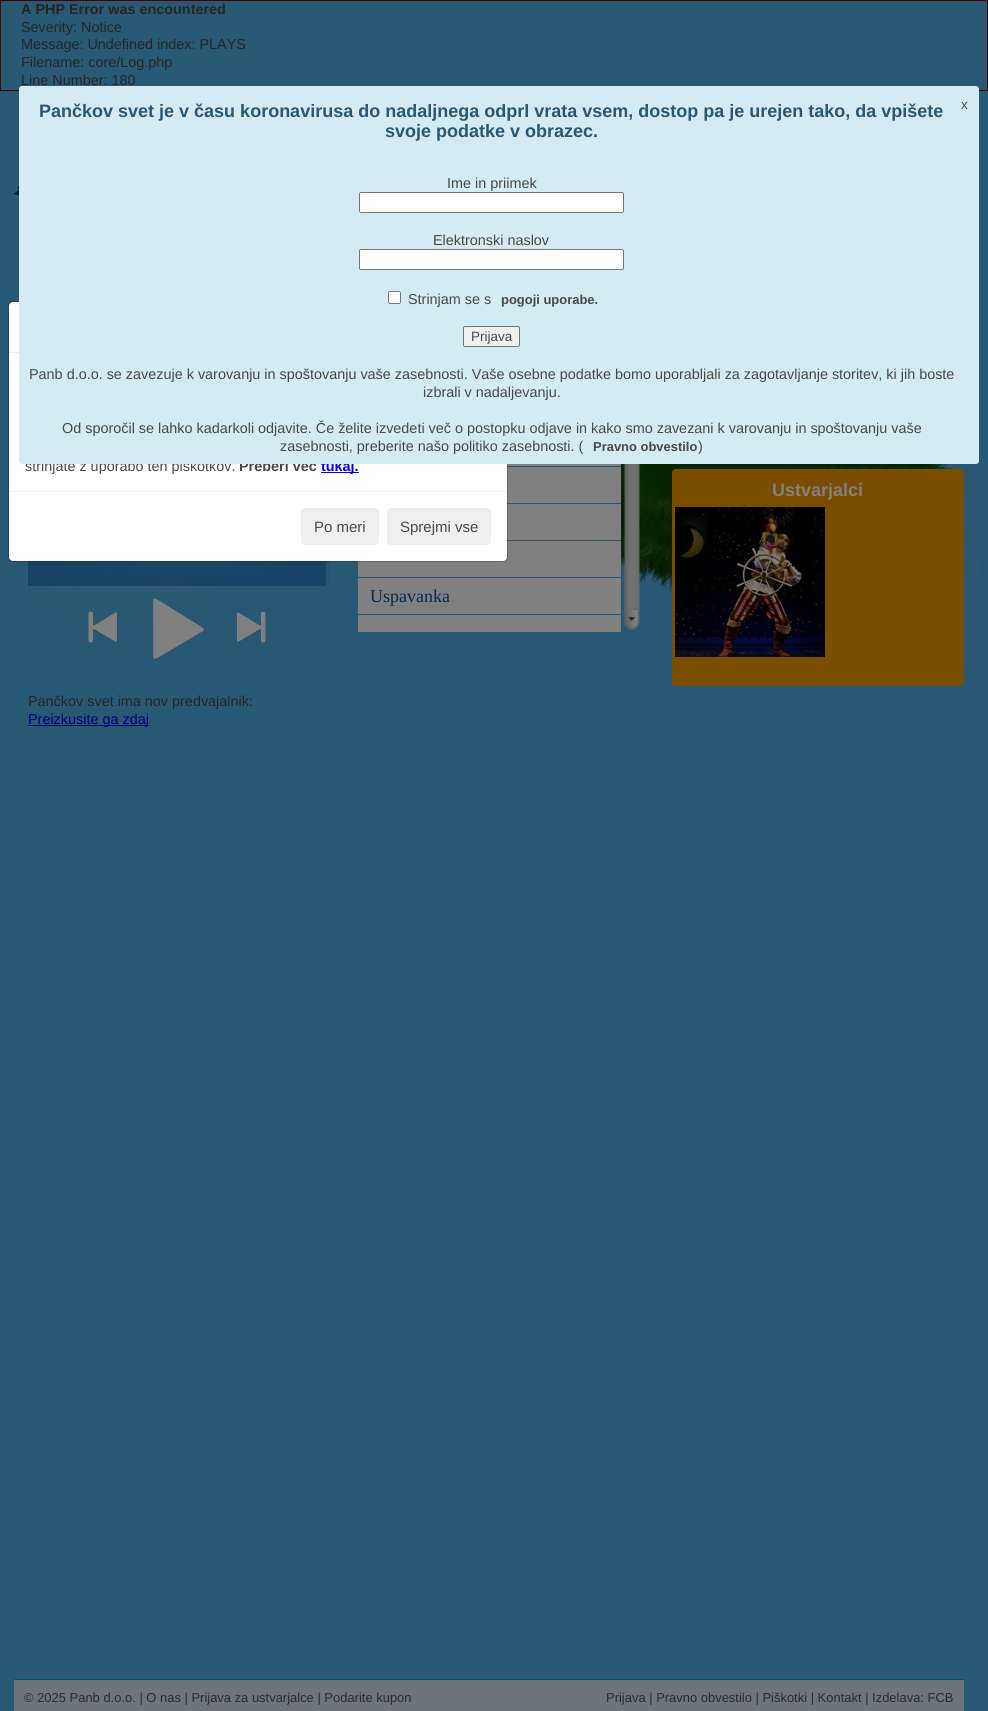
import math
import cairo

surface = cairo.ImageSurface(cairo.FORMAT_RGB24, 988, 1711)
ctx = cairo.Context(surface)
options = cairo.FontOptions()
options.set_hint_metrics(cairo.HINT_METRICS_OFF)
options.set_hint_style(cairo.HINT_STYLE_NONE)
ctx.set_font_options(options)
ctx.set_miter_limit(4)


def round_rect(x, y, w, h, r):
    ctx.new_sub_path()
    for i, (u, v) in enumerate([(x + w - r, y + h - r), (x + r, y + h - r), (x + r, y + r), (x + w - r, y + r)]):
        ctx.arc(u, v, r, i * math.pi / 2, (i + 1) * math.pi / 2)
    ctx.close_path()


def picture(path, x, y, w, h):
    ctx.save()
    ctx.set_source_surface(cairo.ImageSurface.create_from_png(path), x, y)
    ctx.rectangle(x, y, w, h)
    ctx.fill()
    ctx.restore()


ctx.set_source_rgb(0.157, 0.349, 0.455)
ctx.paint()
ctx.rectangle(0.5, 0.5, 987, 90)
ctx.set_source_rgb(0.302, 0, 0)
ctx.set_line_width(1)
ctx.stroke()
ctx.select_font_face("Liberation Sans", cairo.FONT_SLANT_NORMAL, cairo.FONT_WEIGHT_BOLD)
ctx.set_font_size(14.4)
ctx.set_source_rgb(0.145, 0.145, 0.145)
ctx.move_to(21, 14)
ctx.show_text("A PHP Error was encountered")
ctx.select_font_face("Liberation Sans")
ctx.move_to(21, 32)
ctx.show_text("Severity: Notice")
ctx.move_to(21, 49)
ctx.show_text("Message: Undefined index: PLAYS")
ctx.move_to(21, 67)
ctx.show_text("Filename: core/Log.php")
ctx.move_to(21, 85)
ctx.show_text("Line Number: 180")
picture("img1.png", 14, 185, 5, 11)
picture("img2.png", 31, 461, 948, 210)
ctx.set_source_rgb(0.502, 0.502, 0.502)
ctx.rectangle(358, 541, 263, 36)
ctx.fill()
ctx.set_source_rgb(1, 1, 1)
round_rect(9, 302, 498, 259, 4)
ctx.fill()
ctx.set_source_rgb(0.502, 0.502, 0.502)
ctx.rectangle(507, 464, 114, 2)
ctx.fill()
ctx.set_source_rgb(0.157, 0.349, 0.455)
ctx.rectangle(507, 466, 114, 1)
ctx.fill()
ctx.set_source_rgb(0.502, 0.502, 0.502)
ctx.rectangle(507, 467, 114, 36)
ctx.fill()
ctx.set_source_rgb(0.157, 0.349, 0.455)
ctx.rectangle(507, 503, 114, 1)
ctx.fill()
ctx.set_source_rgb(0.502, 0.502, 0.502)
ctx.rectangle(507, 504, 114, 36)
ctx.fill()
ctx.set_source_rgba(0, 0, 0, 0.05)
ctx.rectangle(326, 561, 4, 25)
ctx.fill()
ctx.set_source_rgba(0.016, 0.184, 0.345, 0.5)
ctx.rectangle(28, 561, 298, 25)
ctx.fill()
round_rect(8.5, 301.5, 499, 260, 4.5)
ctx.set_source_rgba(0, 0, 0, 0.2)
ctx.stroke()
ctx.set_source_rgb(0.286, 0.286, 0.286)
ctx.move_to(25, 471)
ctx.show_text("strinjate z uporabo teh piškotkov.")
ctx.select_font_face("Liberation Sans", cairo.FONT_SLANT_NORMAL, cairo.FONT_WEIGHT_BOLD)
ctx.move_to(239, 471)
ctx.show_text("Preberi več")
ctx.set_source_rgb(0, 0, 0.933)
ctx.rectangle(321, 472, 38, 1)
ctx.fill()
ctx.move_to(321, 471)
ctx.show_text("tukaj.")
ctx.set_source_rgb(0.835, 0.918, 0.957)
round_rect(19, 86, 960, 378, 3)
ctx.fill()
ctx.select_font_face("Liberation Sans")
ctx.set_font_size(13.5)
ctx.set_source_rgb(0.286, 0.286, 0.286)
ctx.move_to(961, 109)
ctx.show_text("x")
ctx.set_font_size(14.4)
ctx.move_to(447, 188)
ctx.show_text("Ime in priimek")
ctx.set_source_rgb(1, 1, 1)
round_rect(359.5, 192.5, 264, 20, 1.5)
ctx.fill_preserve()
ctx.set_source_rgb(0.463, 0.463, 0.463)
ctx.stroke()
ctx.set_source_rgb(0.286, 0.286, 0.286)
ctx.move_to(433, 245)
ctx.show_text("Elektronski naslov")
ctx.set_source_rgb(1, 1, 1)
round_rect(359.5, 249.5, 264, 20, 1.5)
ctx.fill_preserve()
ctx.set_source_rgb(0.463, 0.463, 0.463)
ctx.stroke()
ctx.set_source_rgb(1, 1, 1)
round_rect(388.5, 291.5, 12, 12, 1.5)
ctx.fill_preserve()
ctx.set_source_rgb(0.463, 0.463, 0.463)
ctx.stroke()
ctx.set_source_rgb(0.286, 0.286, 0.286)
ctx.move_to(408, 304)
ctx.show_text("Strinjam se s")
ctx.select_font_face("Liberation Sans", cairo.FONT_SLANT_NORMAL, cairo.FONT_WEIGHT_BOLD)
ctx.set_font_size(12.95)
ctx.move_to(501, 304)
ctx.show_text("pogoji uporabe.")
ctx.set_source_rgb(0.937, 0.937, 0.937)
round_rect(463.5, 326.5, 56, 20, 1.5)
ctx.fill_preserve()
ctx.set_source_rgb(0.463, 0.463, 0.463)
ctx.stroke()
ctx.select_font_face("Liberation Sans")
ctx.set_font_size(13.5)
ctx.set_source_rgb(0.286, 0.286, 0.286)
ctx.move_to(471, 341)
ctx.show_text("Prijava")
ctx.set_font_size(14.4)
ctx.move_to(29, 379)
ctx.show_text("Panb d.o.o. se zavezuje k varovanju in spoštovanju vaše zasebnosti. Vaše osebne podatke bomo uporabljali za zagotavljanje storitev, ki jih boste")
ctx.move_to(423, 397)
ctx.show_text("izbrali v nadaljevanju.")
ctx.move_to(62, 433)
ctx.show_text("Od sporočil se lahko kadarkoli odjavite. Če želite izvedeti več o postopku odjave in kako smo zavezani k varovanju in spoštovanju vaše")
ctx.move_to(280, 451)
ctx.show_text("zasebnosti, preberite našo politiko zasebnosti. (")
ctx.select_font_face("Liberation Sans", cairo.FONT_SLANT_NORMAL, cairo.FONT_WEIGHT_BOLD)
ctx.set_font_size(12.95)
ctx.move_to(593, 451)
ctx.show_text("Pravno obvestilo")
ctx.select_font_face("Liberation Sans")
ctx.set_font_size(14.4)
ctx.move_to(698, 451)
ctx.show_text(")")
ctx.select_font_face("Liberation Sans", cairo.FONT_SLANT_NORMAL, cairo.FONT_WEIGHT_BOLD)
ctx.set_font_size(18)
ctx.set_source_rgb(0.157, 0.345, 0.451)
ctx.move_to(39, 117)
ctx.show_text("Pančkov svet je v času koronavirusa do nadaljnega odprl vrata vsem, dostop pa je urejen tako, da vpišete")
ctx.move_to(385, 137)
ctx.show_text("svoje podatke v obrazec.")
ctx.set_source_rgb(0.478, 0.306, 0)
round_rect(672, 469, 292, 217, 4)
ctx.fill()
ctx.set_source_rgb(0.502, 0.502, 0.502)
ctx.move_to(772, 496)
ctx.show_text("Ustvarjalci")
picture("img3.png", 675, 507, 150, 150)
ctx.set_source_rgb(0.157, 0.349, 0.455)
ctx.rectangle(604, 540, 17, 1)
ctx.fill()
ctx.set_source_rgb(0.502, 0.502, 0.502)
ctx.rectangle(358, 578, 263, 36)
ctx.fill()
ctx.select_font_face("Liberation Serif")
ctx.set_source_rgb(0, 0.173, 0.329)
ctx.move_to(370, 602)
ctx.show_text("Uspavanka")
ctx.set_source_rgb(0.502, 0.502, 0.502)
ctx.rectangle(358, 615, 263, 17)
ctx.fill()
picture("img4.png", 624, 464, 16, 145)
picture("img5.png", 624, 609, 16, 22)
picture("img6.png", 88, 611, 29, 32)
picture("img7.png", 153, 598, 51, 61)
picture("img8.png", 237, 611, 29, 32)
ctx.select_font_face("Liberation Sans")
ctx.set_font_size(14.4)
ctx.set_source_rgb(0.145, 0.145, 0.145)
ctx.move_to(28, 706)
ctx.show_text("Pančkov svet ima nov predvajalnik:")
ctx.set_source_rgb(0, 0, 0.467)
ctx.rectangle(28, 725, 121, 1)
ctx.fill()
ctx.move_to(28, 724)
ctx.show_text("Preizkusite ga zdaj")
ctx.set_source_rgb(0.42, 0.459, 0.478)
ctx.rectangle(14, 1680, 950, 31)
ctx.fill()
ctx.set_source_rgb(0, 0.333, 0.439)
ctx.rectangle(14, 1679, 950, 1)
ctx.fill()
ctx.set_font_size(12.95)
ctx.set_source_rgb(0.169, 0.169, 0.169)
ctx.move_to(24, 1702)
ctx.show_text("© 2025 Panb d.o.o. | O nas | Prijava za ustvarjalce | Podarite kupon")
ctx.move_to(606, 1702)
ctx.show_text("Prijava | Pravno obvestilo | Piškotki | Kontakt | Izdelava: FCB")
ctx.set_source_rgb(0.925, 0.941, 0.945)
ctx.rectangle(9, 352, 10, 1)
ctx.fill()
ctx.rectangle(9, 491, 498, 1)
ctx.fill()
ctx.set_source_rgb(0.937, 0.937, 0.937)
round_rect(301, 508, 78, 37, 4)
ctx.fill()
ctx.set_font_size(15)
ctx.set_source_rgb(0.286, 0.286, 0.286)
ctx.move_to(314, 532)
ctx.show_text("Po meri")
ctx.set_source_rgb(0.937, 0.937, 0.937)
round_rect(387, 508, 104, 37, 4)
ctx.fill()
ctx.set_source_rgb(0.286, 0.286, 0.286)
ctx.move_to(400, 532)
ctx.show_text("Sprejmi vse")
surface.write_to_png("page.png")
